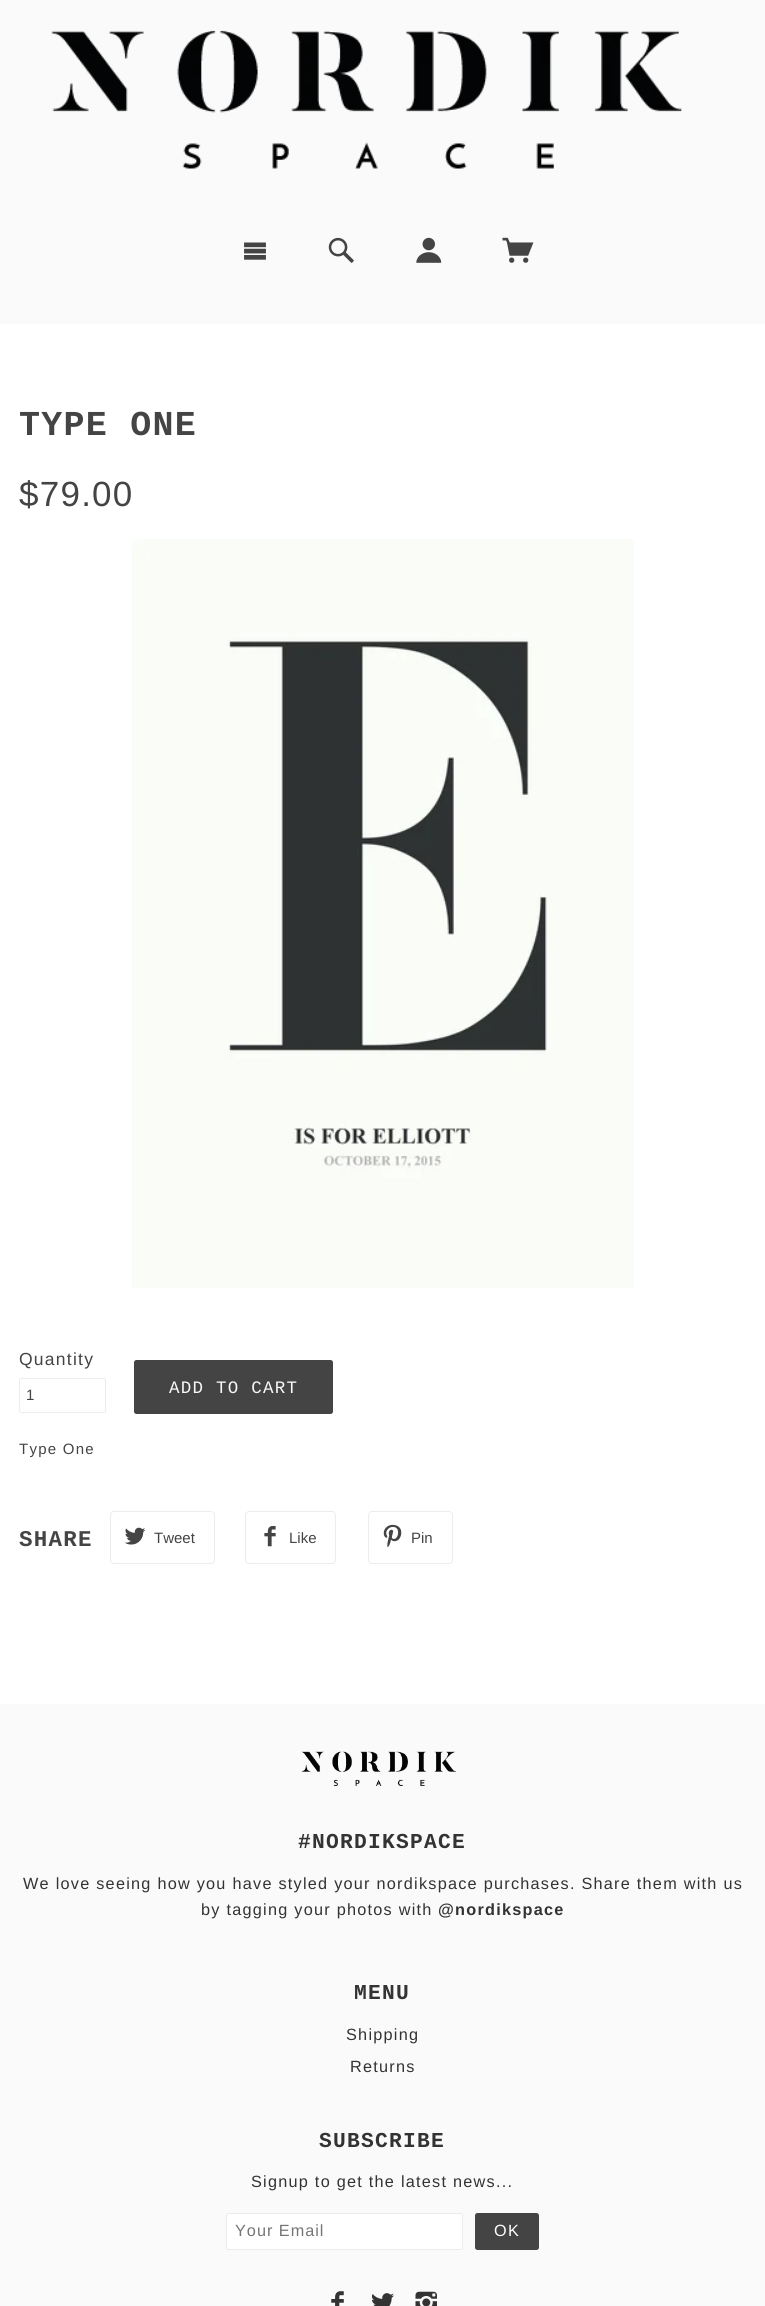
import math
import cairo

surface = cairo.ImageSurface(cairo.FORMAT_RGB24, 765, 2306)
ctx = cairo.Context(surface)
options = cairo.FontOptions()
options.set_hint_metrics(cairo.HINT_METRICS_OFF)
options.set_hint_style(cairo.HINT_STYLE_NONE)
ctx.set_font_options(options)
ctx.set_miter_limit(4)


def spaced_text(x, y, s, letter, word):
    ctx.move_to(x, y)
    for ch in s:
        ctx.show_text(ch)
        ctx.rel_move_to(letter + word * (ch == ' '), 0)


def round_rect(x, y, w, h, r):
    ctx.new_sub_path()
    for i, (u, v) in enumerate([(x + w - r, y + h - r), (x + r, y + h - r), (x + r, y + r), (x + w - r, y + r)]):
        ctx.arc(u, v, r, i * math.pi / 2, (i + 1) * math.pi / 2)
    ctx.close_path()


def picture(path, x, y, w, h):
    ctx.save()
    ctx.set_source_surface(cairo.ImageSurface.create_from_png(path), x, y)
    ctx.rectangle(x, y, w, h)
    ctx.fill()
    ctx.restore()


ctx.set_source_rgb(1, 1, 1)
ctx.paint()
ctx.set_source_rgb(0.98, 0.98, 0.98)
ctx.rectangle(0, 0, 765, 324)
ctx.fill()
picture("img1.png", 51, 30, 631, 139)
picture("img2.png", 244, 242, 22, 18)
picture("img3.png", 328, 237, 26, 26)
picture("img4.png", 416, 237, 26, 26)
picture("img5.png", 502, 237, 32, 26)
ctx.select_font_face("Liberation Mono", cairo.FONT_SLANT_NORMAL, cairo.FONT_WEIGHT_BOLD)
ctx.set_font_size(35)
ctx.set_source_rgb(0.267, 0.267, 0.267)
spaced_text(19, 435, "TYPE ONE", 1.25, 0)
ctx.select_font_face("Liberation Sans")
spaced_text(19, 506, "$79.00", 1.25, 0)
picture("img6.png", 131, 539, 503, 749)
ctx.set_font_size(17.5)
spaced_text(19, 1365, "Quantity", 1.25, 0)
round_rect(19.5, 1378.5, 86, 34, 2)
ctx.set_source_rgb(0.922, 0.922, 0.922)
ctx.set_line_width(1)
ctx.stroke()
ctx.set_font_size(15)
ctx.set_source_rgb(0.267, 0.267, 0.267)
spaced_text(26, 1400, "1", 1, 0)
round_rect(134, 1360, 199, 54, 2.5)
ctx.fill()
ctx.select_font_face("Liberation Mono")
ctx.set_font_size(17.5)
ctx.set_source_rgb(0.969, 0.969, 0.969)
spaced_text(169, 1393, "ADD TO CART", 1.25, 0)
ctx.select_font_face("Liberation Sans")
ctx.set_font_size(15)
ctx.set_source_rgb(0.267, 0.267, 0.267)
spaced_text(19, 1454, "Type One", 1.25, 0)
ctx.select_font_face("Liberation Mono", cairo.FONT_SLANT_NORMAL, cairo.FONT_WEIGHT_BOLD)
ctx.set_font_size(22.5)
spaced_text(19, 1546, "SHARE", 1.25, 0)
round_rect(110.5, 1511.5, 104, 52, 3.5)
ctx.set_source_rgb(0.922, 0.922, 0.922)
ctx.stroke()
picture("img7.png", 124, 1527, 22, 18)
ctx.select_font_face("Liberation Sans")
ctx.set_font_size(15)
ctx.set_source_rgb(0.267, 0.267, 0.267)
ctx.move_to(154, 1543)
ctx.show_text("Tweet")
round_rect(245.5, 1511.5, 90, 52, 3.5)
ctx.set_source_rgb(0.922, 0.922, 0.922)
ctx.stroke()
picture("img8.png", 264, 1526, 12, 21)
ctx.set_source_rgb(0.267, 0.267, 0.267)
ctx.move_to(289, 1543)
ctx.show_text("Like")
round_rect(368.5, 1511.5, 84, 52, 3.5)
ctx.set_source_rgb(0.922, 0.922, 0.922)
ctx.stroke()
picture("img9.png", 383, 1524, 19, 24)
ctx.set_source_rgb(0.267, 0.267, 0.267)
ctx.move_to(411, 1543)
ctx.show_text("Pin")
ctx.set_source_rgb(0.98, 0.98, 0.98)
ctx.rectangle(0, 1704, 765, 602)
ctx.fill()
picture("img10.png", 301, 1751, 155, 35)
ctx.select_font_face("Liberation Mono", cairo.FONT_SLANT_NORMAL, cairo.FONT_WEIGHT_BOLD)
ctx.set_font_size(21.25)
ctx.set_source_rgb(0.2, 0.2, 0.2)
spaced_text(298, 1848, "#NORDIKSPACE", 1.25, 0)
ctx.select_font_face("Liberation Sans")
ctx.set_font_size(16.25)
spaced_text(23, 1889, "We love seeing how you have styled your nordikspace purchases. Share them with us", 1.25, 0)
spaced_text(201, 1915, "by tagging your photos with", 1.25, 0)
ctx.select_font_face("Liberation Sans", cairo.FONT_SLANT_NORMAL, cairo.FONT_WEIGHT_BOLD)
spaced_text(438, 1915, "@nordikspace", 1.25, 0)
ctx.select_font_face("Liberation Mono", cairo.FONT_SLANT_NORMAL, cairo.FONT_WEIGHT_BOLD)
ctx.set_font_size(21.25)
spaced_text(354, 1999, "MENU", 1.25, 0)
ctx.select_font_face("Liberation Sans")
ctx.set_font_size(16.25)
spaced_text(346, 2040, "Shipping", 1.25, 0)
spaced_text(350, 2072, "Returns", 1.25, 0)
ctx.select_font_face("Liberation Mono", cairo.FONT_SLANT_NORMAL, cairo.FONT_WEIGHT_BOLD)
ctx.set_font_size(21.25)
spaced_text(319, 2147, "SUBSCRIBE", 1.25, 0)
ctx.select_font_face("Liberation Sans")
ctx.set_font_size(16.25)
spaced_text(251, 2187, "Signup to get the latest news...", 1.25, 0)
ctx.set_source_rgb(1, 1, 1)
round_rect(226.5, 2213.5, 236, 36, 2)
ctx.fill_preserve()
ctx.set_source_rgb(0.922, 0.922, 0.922)
ctx.stroke()
ctx.set_source_rgb(0.459, 0.459, 0.459)
spaced_text(235, 2236, "Your Email", 1, 0)
ctx.set_source_rgb(0.267, 0.267, 0.267)
round_rect(475, 2213, 64, 37, 2.5)
ctx.fill()
ctx.set_source_rgb(1, 1, 1)
spaced_text(494, 2236, "OK", 1.25, 0)
picture("img11.png", 331, 2291, 13, 15)
picture("img12.png", 372, 2293, 22, 13)
picture("img13.png", 415, 2291, 22, 15)
surface.write_to_png("page.png")
